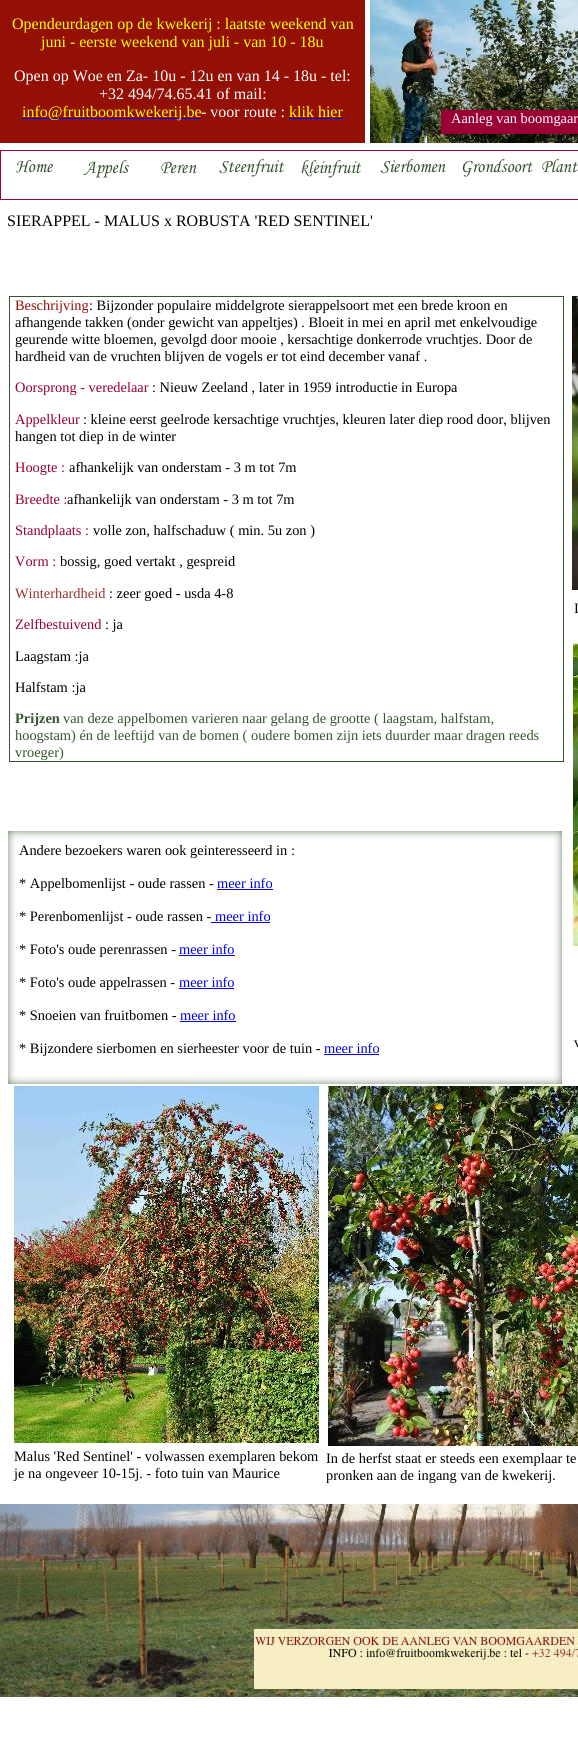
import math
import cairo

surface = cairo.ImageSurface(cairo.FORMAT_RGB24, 578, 1758)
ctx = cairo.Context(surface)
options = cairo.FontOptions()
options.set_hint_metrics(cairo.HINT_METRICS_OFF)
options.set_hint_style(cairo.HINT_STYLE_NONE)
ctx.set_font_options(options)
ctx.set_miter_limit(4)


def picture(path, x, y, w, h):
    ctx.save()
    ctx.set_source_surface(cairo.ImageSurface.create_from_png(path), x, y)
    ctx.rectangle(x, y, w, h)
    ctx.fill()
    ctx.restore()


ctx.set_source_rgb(1, 1, 1)
ctx.paint()
ctx.set_source_rgb(0.58, 0.059, 0.016)
ctx.rectangle(0, 0, 365, 143)
ctx.fill()
ctx.select_font_face("Liberation Serif")
ctx.set_font_size(16)
ctx.set_source_rgb(1, 1, 0)
ctx.move_to(12, 29)
ctx.show_text("Opendeurdagen op de kwekerij : laatste weekend van")
ctx.move_to(41, 47)
ctx.show_text("juni - eerste weekend van juli - van 10 - 18u")
ctx.set_source_rgb(1, 1, 1)
ctx.move_to(14, 81)
ctx.show_text("Open op Woe en Za- 10u - 12u en van 14 - 18u - tel:")
ctx.move_to(99, 99)
ctx.show_text("+32 494/74.65.41 of mail:")
ctx.set_source_rgb(0, 0, 0.933)
ctx.rectangle(22, 118, 179, 1)
ctx.fill()
ctx.set_source_rgb(1, 1, 0)
ctx.move_to(22, 117)
ctx.show_text("info@fruitboomkwekerij.be")
ctx.set_source_rgb(1, 1, 1)
ctx.move_to(201, 117)
ctx.show_text("- voor route :")
ctx.set_source_rgb(1, 1, 0)
ctx.move_to(289, 117)
ctx.show_text("klik hier")
ctx.set_source_rgb(0, 0, 0.933)
ctx.rectangle(289, 118, 54, 1)
ctx.fill()
picture("img1.png", 370, 0, 208, 144)
ctx.set_source_rgb(0.6, 0, 0.2)
ctx.rectangle(441, 110, 137, 24)
ctx.fill()
ctx.set_font_size(14.4)
ctx.set_source_rgb(1, 1, 1)
ctx.move_to(451, 123)
ctx.show_text("Aanleg van boomgaar")
picture("img2.png", 0, 150, 578, 50)
ctx.set_font_size(16)
ctx.set_source_rgb(0, 0, 0)
ctx.move_to(7, 226)
ctx.show_text("SIERAPPEL - MALUS x ROBUSTA 'RED SENTINEL'")
ctx.rectangle(9.5, 296.5, 554, 465)
ctx.set_source_rgb(0.212, 0.333, 0.188)
ctx.set_line_width(1)
ctx.stroke()
ctx.set_font_size(14.4)
ctx.set_source_rgb(0.58, 0.059, 0.016)
ctx.move_to(15, 310)
ctx.show_text("Beschrijving")
ctx.set_source_rgb(0, 0, 0)
ctx.move_to(89, 310)
ctx.show_text(": Bijzonder populaire middelgrote sierappelsoort met een brede kroon en")
ctx.move_to(15, 327)
ctx.show_text("afhangende takken (onder gewicht van appeltjes) . Bloeit in mei en april met enkelvoudige")
ctx.move_to(15, 344)
ctx.show_text("geurende witte bloemen, gevolgd door mooie , kersachtige donkerrode vruchtjes. Door de")
ctx.move_to(15, 361)
ctx.show_text("hardheid van de vruchten blijven de vogels er tot eind december vanaf .")
ctx.set_source_rgb(0.6, 0, 0.2)
ctx.move_to(15, 392)
ctx.show_text("Oorsprong - veredelaar")
ctx.set_source_rgb(0, 0, 0)
ctx.move_to(152, 392)
ctx.show_text(": Nieuw Zeeland , later in 1959 introductie in Europa")
ctx.set_source_rgb(0.6, 0, 0.2)
ctx.move_to(15, 424)
ctx.show_text("Appelkleur")
ctx.set_source_rgb(0, 0, 0)
ctx.move_to(83, 424)
ctx.show_text(": kleine eerst geelrode kersachtige vruchtjes, kleuren later diep rood door, blijven")
ctx.move_to(15, 441)
ctx.show_text("hangen tot diep in de winter")
ctx.set_source_rgb(0.6, 0, 0.2)
ctx.move_to(15, 472)
ctx.show_text("Hoogte :")
ctx.set_source_rgb(0, 0, 0)
ctx.move_to(69, 472)
ctx.show_text("afhankelijk van onderstam - 3 m tot 7m")
ctx.set_source_rgb(0.6, 0, 0.2)
ctx.move_to(15, 504)
ctx.show_text("Breedte :")
ctx.set_source_rgb(0, 0, 0)
ctx.move_to(67, 504)
ctx.show_text("afhankelijk van onderstam - 3 m tot 7m")
ctx.set_source_rgb(0.6, 0, 0.2)
ctx.move_to(15, 535)
ctx.show_text("Standplaats :")
ctx.set_source_rgb(0, 0, 0)
ctx.move_to(93, 535)
ctx.show_text("volle zon, halfschaduw ( min. 5u zon )")
ctx.set_source_rgb(0.6, 0, 0.2)
ctx.move_to(15, 566)
ctx.show_text("Vorm :")
ctx.set_source_rgb(0, 0, 0)
ctx.move_to(60, 566)
ctx.show_text("bossig, goed vertakt , gespreid")
ctx.set_source_rgb(0.6, 0.2, 0.2)
ctx.move_to(15, 598)
ctx.show_text("Winterhardheid")
ctx.set_source_rgb(0, 0, 0)
ctx.move_to(109, 598)
ctx.show_text(": zeer goed - usda 4-8")
ctx.set_source_rgb(0.6, 0, 0.2)
ctx.move_to(15, 629)
ctx.show_text("Zelfbestuivend")
ctx.set_source_rgb(0, 0, 0)
ctx.move_to(105, 629)
ctx.show_text(": ja")
ctx.move_to(15, 661)
ctx.show_text("Laagstam :ja")
ctx.move_to(15, 692)
ctx.show_text("Halfstam :ja")
ctx.select_font_face("Liberation Serif", cairo.FONT_SLANT_NORMAL, cairo.FONT_WEIGHT_BOLD)
ctx.set_source_rgb(0.212, 0.333, 0.188)
ctx.move_to(15, 723)
ctx.show_text("Prijzen")
ctx.select_font_face("Liberation Serif")
ctx.move_to(63, 723)
ctx.show_text("van deze appelbomen varieren naar gelang de grootte ( laagstam, halfstam,")
ctx.move_to(15, 740)
ctx.show_text("hoogstam) én de leeftijd van de bomen ( oudere bomen zijn iets duurder maar dragen reeds")
ctx.move_to(15, 757)
ctx.show_text("vroeger)")
picture("img3.png", 572, 296, 6, 294)
ctx.set_source_rgb(0, 0, 0)
ctx.move_to(574, 613)
ctx.show_text("I")
picture("img4.png", 8, 831, 11, 11)
picture("img5.png", 19, 831, 532, 8)
picture("img6.png", 551, 831, 11, 11)
picture("img7.png", 8, 842, 8, 231)
ctx.move_to(19, 855)
ctx.show_text("Andere bezoekers waren ook geinteresseerd in :")
ctx.move_to(19, 888)
ctx.show_text("* Appelbomenlijst - oude rassen -")
ctx.set_source_rgb(0, 0, 0.933)
ctx.rectangle(217, 889, 56, 1)
ctx.fill()
ctx.move_to(217, 888)
ctx.show_text("meer info")
ctx.set_source_rgb(0, 0, 0)
ctx.move_to(19, 921)
ctx.show_text("* Perenbomenlijst - oude rassen -")
ctx.set_source_rgb(0, 0, 0.933)
ctx.rectangle(211, 922, 59, 1)
ctx.fill()
ctx.move_to(215, 921)
ctx.show_text("meer info")
ctx.set_source_rgb(0, 0, 0)
ctx.move_to(19, 954)
ctx.show_text("* Foto's oude perenrassen -")
ctx.set_source_rgb(0, 0, 0.933)
ctx.rectangle(179, 955, 56, 1)
ctx.fill()
ctx.move_to(179, 954)
ctx.show_text("meer info")
ctx.set_source_rgb(0, 0, 0)
ctx.move_to(19, 987)
ctx.show_text("* Foto's oude appelrassen -")
ctx.set_source_rgb(0, 0, 0.933)
ctx.rectangle(179, 988, 55, 1)
ctx.fill()
ctx.move_to(179, 987)
ctx.show_text("meer info")
ctx.set_source_rgb(0, 0, 0)
ctx.move_to(19, 1020)
ctx.show_text("* Snoeien van fruitbomen -")
ctx.set_source_rgb(0, 0, 0.933)
ctx.move_to(180, 1020)
ctx.show_text("meer info")
ctx.rectangle(180, 1021, 56, 1)
ctx.fill()
ctx.set_source_rgb(0, 0, 0)
ctx.move_to(19, 1053)
ctx.show_text("* Bijzondere sierbomen en sierheester voor de tuin -")
ctx.set_source_rgb(0, 0, 0.933)
ctx.rectangle(324, 1054, 55, 1)
ctx.fill()
ctx.move_to(324, 1053)
ctx.show_text("meer info")
picture("img8.png", 554, 842, 8, 231)
picture("img9.png", 8, 1073, 11, 11)
picture("img10.png", 19, 1076, 532, 8)
picture("img11.png", 551, 1073, 11, 11)
picture("img12.png", 573, 643, 5, 303)
ctx.set_source_rgb(0, 0, 0)
ctx.move_to(574, 1047)
ctx.show_text("v")
picture("img13.png", 14, 1086, 305, 357)
picture("img14.png", 328, 1086, 250, 360)
ctx.move_to(14, 1461)
ctx.show_text("Malus 'Red Sentinel' - volwassen exemplaren bekom")
ctx.move_to(14, 1478)
ctx.show_text("je na ongeveer 10-15j. - foto tuin van Maurice")
ctx.move_to(326, 1463)
ctx.show_text("In de herfst staat er steeds een exemplaar te")
ctx.move_to(326, 1480)
ctx.show_text("pronken aan de ingang van de kwekerij.")
picture("img15.png", 0, 1504, 578, 193)
surface.write_to_png("page.png")
